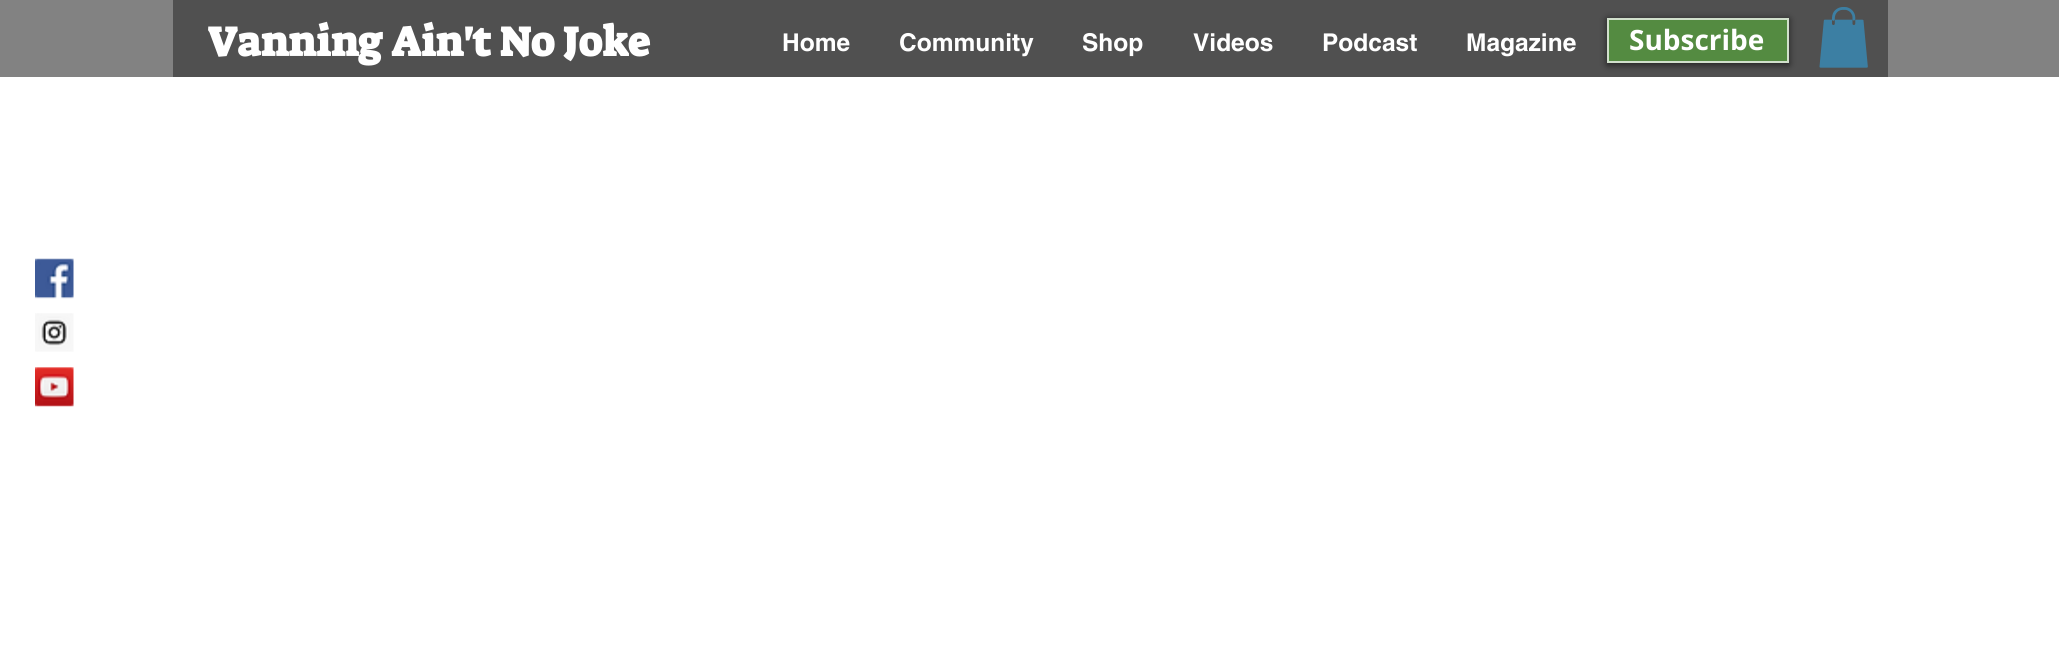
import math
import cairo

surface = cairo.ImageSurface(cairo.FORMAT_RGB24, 2059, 662)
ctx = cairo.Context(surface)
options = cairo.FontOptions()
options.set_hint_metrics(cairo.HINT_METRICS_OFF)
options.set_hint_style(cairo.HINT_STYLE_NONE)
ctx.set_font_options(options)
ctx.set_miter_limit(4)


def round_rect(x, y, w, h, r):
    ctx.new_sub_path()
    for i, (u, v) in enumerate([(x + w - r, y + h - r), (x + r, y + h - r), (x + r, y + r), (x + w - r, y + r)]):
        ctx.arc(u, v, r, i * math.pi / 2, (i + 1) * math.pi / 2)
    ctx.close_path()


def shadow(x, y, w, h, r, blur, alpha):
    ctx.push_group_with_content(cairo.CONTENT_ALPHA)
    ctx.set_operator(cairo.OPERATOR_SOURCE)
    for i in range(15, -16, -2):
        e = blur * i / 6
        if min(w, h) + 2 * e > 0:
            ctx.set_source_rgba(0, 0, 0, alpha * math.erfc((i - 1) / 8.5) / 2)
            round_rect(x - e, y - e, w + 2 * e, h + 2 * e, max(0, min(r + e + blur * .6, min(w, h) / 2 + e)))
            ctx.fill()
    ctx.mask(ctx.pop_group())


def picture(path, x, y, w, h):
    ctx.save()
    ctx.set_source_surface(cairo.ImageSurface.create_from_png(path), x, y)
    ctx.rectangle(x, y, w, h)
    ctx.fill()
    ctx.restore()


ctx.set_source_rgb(1, 1, 1)
ctx.paint()
ctx.set_source_rgb(0.51, 0.51, 0.51)
ctx.rectangle(0, 0, 2059, 77)
ctx.fill()
ctx.set_source_rgb(0.314, 0.314, 0.314)
ctx.rectangle(173, 0, 1715, 77)
ctx.fill()
picture("img1.png", 1819, 7, 49, 61)
ctx.select_font_face("Suez One", cairo.FONT_SLANT_NORMAL, cairo.FONT_WEIGHT_BOLD)
ctx.set_font_size(42)
ctx.set_source_rgb(1, 1, 1)
ctx.move_to(207, 56)
ctx.show_text("Vanning Ain't No Joke")
ctx.select_font_face("helvetica", cairo.FONT_SLANT_NORMAL, cairo.FONT_WEIGHT_BOLD)
ctx.set_font_size(24.5)
ctx.move_to(782, 51)
ctx.show_text("Home")
ctx.move_to(899, 51)
ctx.show_text("Community")
ctx.move_to(1082, 51)
ctx.show_text("Shop")
ctx.move_to(1193, 51)
ctx.show_text("Videos")
ctx.move_to(1322, 51)
ctx.show_text("Podcast")
ctx.move_to(1466, 51)
ctx.show_text("Magazine")
ctx.save()
ctx.set_fill_rule(cairo.FILL_RULE_EVEN_ODD)
ctx.new_path()
ctx.move_to(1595, 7)
ctx.line_to(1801, 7)
ctx.line_to(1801, 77)
ctx.line_to(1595, 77)
ctx.close_path()
ctx.move_to(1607, 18)
ctx.line_to(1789, 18)
ctx.line_to(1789, 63)
ctx.line_to(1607, 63)
ctx.close_path()
ctx.clip()
ctx.set_source_rgb(0, 0, 0)
shadow(1607, 19, 182, 46, 0, 3.5, 0.6)
ctx.restore()
ctx.set_source_rgba(0.341, 0.639, 0.235, 0.72)
ctx.rectangle(1607, 18, 182, 45)
ctx.fill()
ctx.rectangle(1608, 19, 180, 43)
ctx.set_source_rgba(1, 1, 1, 0.73)
ctx.stroke()
ctx.select_font_face("Open Sans", cairo.FONT_SLANT_NORMAL, cairo.FONT_WEIGHT_BOLD)
ctx.set_font_size(28)
ctx.set_source_rgb(1, 1, 1)
ctx.move_to(1629, 50)
ctx.show_text("Subscribe")
picture("img2.png", 35, 258, 39, 41)
picture("img3.png", 35, 313, 39, 39)
picture("img4.png", 35, 367, 39, 40)
surface.write_to_png("page.png")
